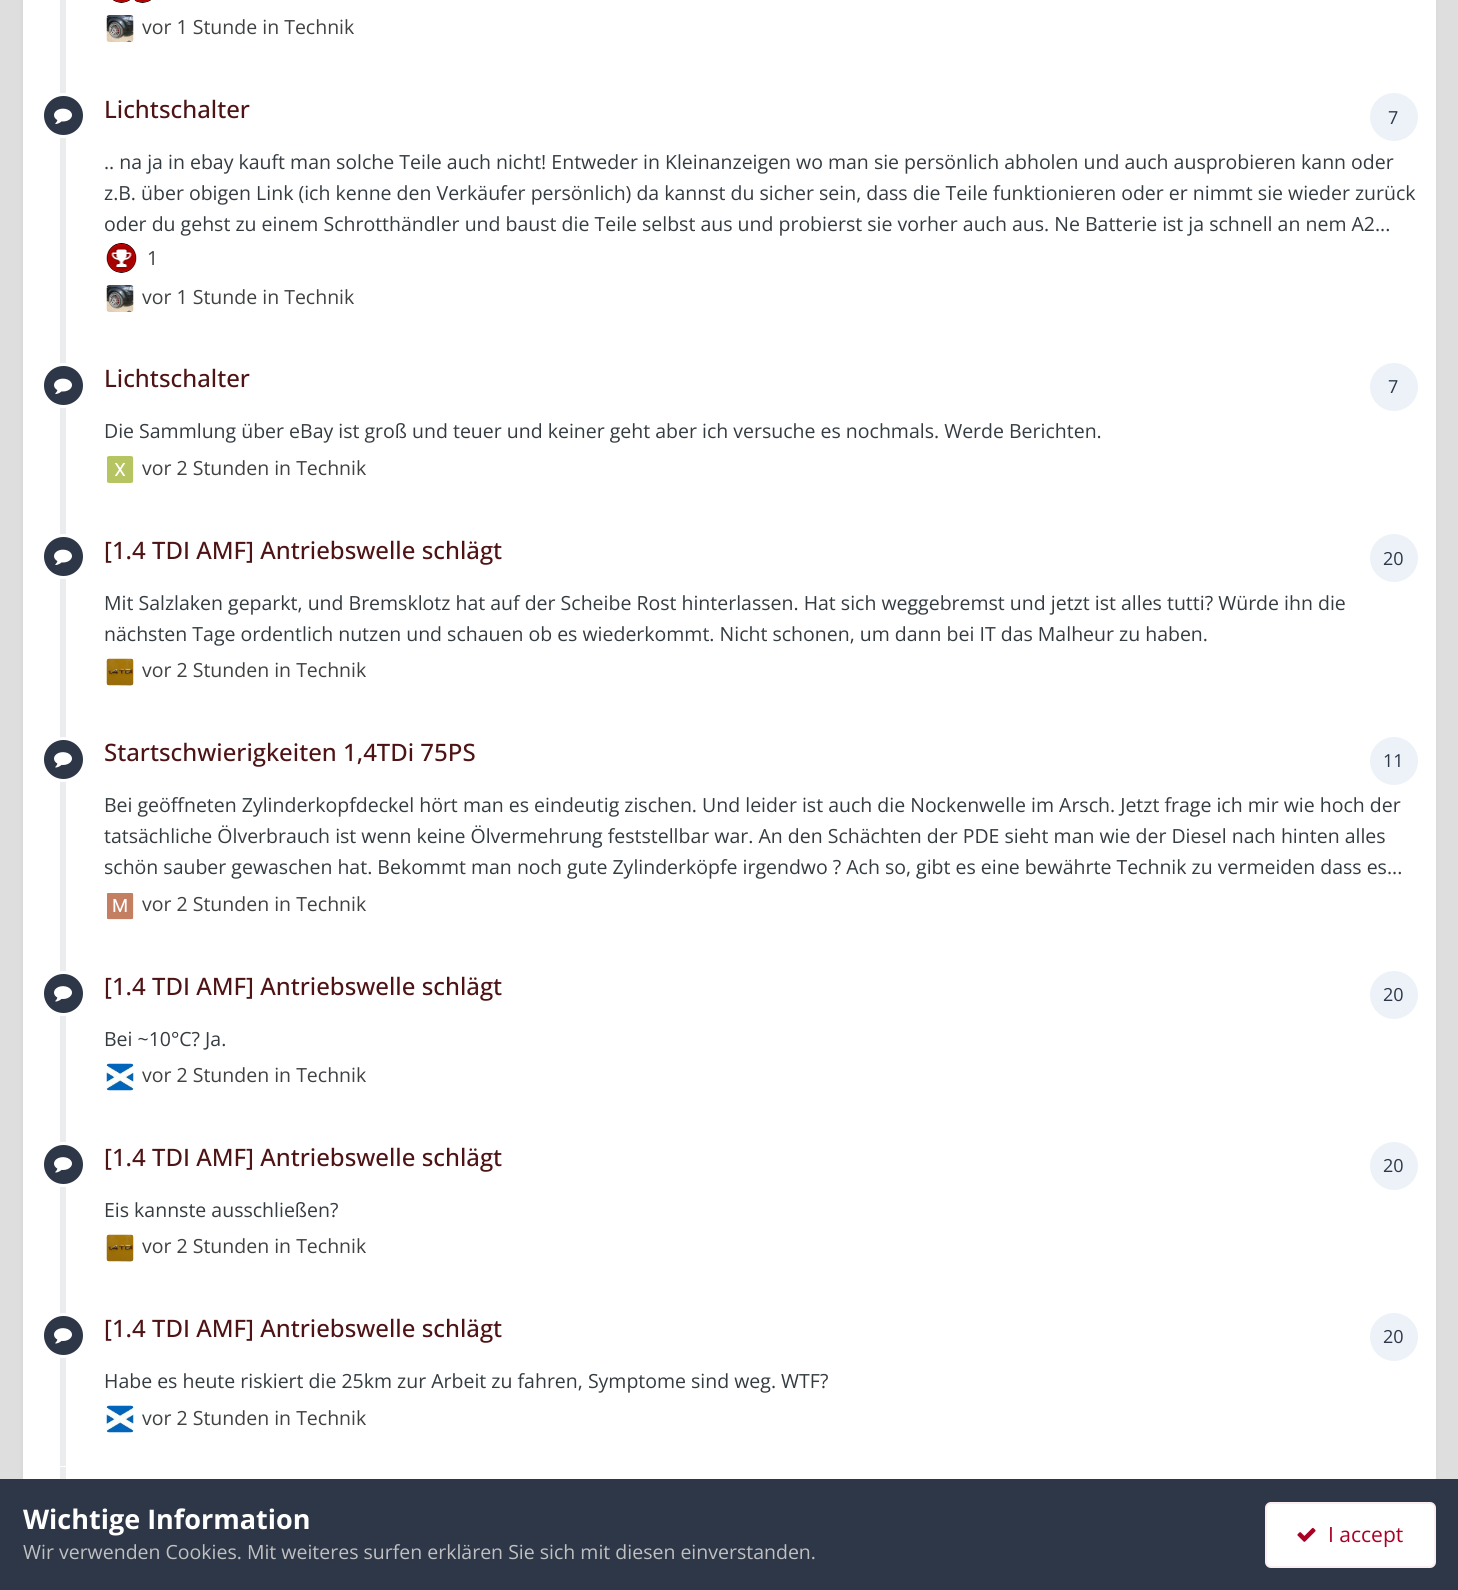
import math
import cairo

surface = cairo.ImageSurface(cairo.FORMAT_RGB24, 1458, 1590)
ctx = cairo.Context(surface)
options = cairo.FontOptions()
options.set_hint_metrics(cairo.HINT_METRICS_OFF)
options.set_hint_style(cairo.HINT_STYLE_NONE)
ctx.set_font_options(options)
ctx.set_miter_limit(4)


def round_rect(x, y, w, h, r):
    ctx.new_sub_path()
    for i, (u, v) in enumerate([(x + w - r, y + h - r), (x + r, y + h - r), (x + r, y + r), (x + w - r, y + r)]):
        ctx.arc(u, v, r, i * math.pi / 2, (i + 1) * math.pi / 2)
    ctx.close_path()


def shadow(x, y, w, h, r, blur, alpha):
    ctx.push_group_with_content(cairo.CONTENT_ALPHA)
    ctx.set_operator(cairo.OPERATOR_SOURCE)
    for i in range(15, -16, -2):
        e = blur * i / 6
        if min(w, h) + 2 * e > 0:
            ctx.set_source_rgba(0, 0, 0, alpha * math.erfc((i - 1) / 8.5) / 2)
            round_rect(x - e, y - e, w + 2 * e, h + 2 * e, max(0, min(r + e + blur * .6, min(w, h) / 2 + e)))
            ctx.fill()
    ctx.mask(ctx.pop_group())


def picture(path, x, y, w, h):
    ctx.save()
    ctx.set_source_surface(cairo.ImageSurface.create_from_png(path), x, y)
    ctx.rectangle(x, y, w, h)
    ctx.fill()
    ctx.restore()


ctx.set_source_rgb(0.871, 0.871, 0.871)
ctx.paint()
ctx.set_source_rgb(0.176, 0.216, 0.282)
shadow(24, -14, 1410, 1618, 5, 3, 0.1)
ctx.set_source_rgb(1, 1, 1)
ctx.rectangle(23, 0, 1413, 1479)
ctx.fill()
ctx.set_source_rgb(0.918, 0.922, 0.929)
ctx.rectangle(60, 0, 6, 1466)
ctx.fill()
picture("img2.png", 134, 0, 17, 3)
round_rect(105.5, -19.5, 33, 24, 16.5)
ctx.set_source_rgb(1, 1, 1)
ctx.set_line_width(3)
ctx.stroke()
picture("img1.png", 113, 0, 17, 3)
picture("img3.png", 106, 15, 28, 27)
ctx.select_font_face("Open Sans")
ctx.set_font_size(19.5)
ctx.set_source_rgb(0.247, 0.255, 0.263)
ctx.move_to(142, 34)
ctx.show_text("vor 1 Stunde in Technik")
ctx.set_source_rgb(0.176, 0.216, 0.282)
ctx.new_path()
ctx.arc(63.5, 115.5, 21, 0, 2 * math.pi)
ctx.fill_preserve()
ctx.set_source_rgb(1, 1, 1)
ctx.stroke()
picture("img4.png", 54, 108, 18, 16)
ctx.select_font_face("Open Sans Medium")
ctx.set_font_size(24)
ctx.set_source_rgb(0.306, 0.078, 0.082)
ctx.move_to(104, 118)
ctx.show_text("Lichtschalter")
ctx.select_font_face("Open Sans")
ctx.set_font_size(19.5)
ctx.set_source_rgb(0.208, 0.235, 0.255)
ctx.move_to(104, 169)
ctx.show_text(".. na ja in ebay kauft man solche Teile auch nicht! Entweder in Kleinanzeigen wo man sie persönlich abholen und auch ausprobieren kann oder")
ctx.move_to(104, 200)
ctx.show_text("z.B. über obigen Link (ich kenne den Verkäufer persönlich) da kannst du sicher sein, dass die Teile funktionieren oder er nimmt sie wieder zurück")
ctx.move_to(104, 231)
ctx.show_text("oder du gehst zu einem Schrotthändler und baust die Teile selbst aus und probierst sie vorher auch aus. Ne Batterie ist ja schnell an nem A2...")
picture("img5.png", 106, 243, 31, 30)
ctx.set_source_rgb(0.247, 0.255, 0.263)
ctx.move_to(147, 265)
ctx.show_text("1")
picture("img3.png", 106, 285, 28, 27)
ctx.move_to(142, 304)
ctx.show_text("vor 1 Stunde in Technik")
ctx.set_source_rgb(0.929, 0.949, 0.969)
ctx.new_path()
ctx.arc(1394, 117, 24, 0, 2 * math.pi)
ctx.fill()
ctx.set_font_size(18)
ctx.set_source_rgb(0.176, 0.216, 0.282)
ctx.move_to(1388, 124)
ctx.show_text("7")
ctx.new_path()
ctx.arc(63.5, 385.5, 21, 0, 2 * math.pi)
ctx.fill_preserve()
ctx.set_source_rgb(1, 1, 1)
ctx.stroke()
picture("img4.png", 54, 378, 18, 16)
ctx.select_font_face("Open Sans Medium")
ctx.set_font_size(24)
ctx.set_source_rgb(0.306, 0.078, 0.082)
ctx.move_to(104, 387)
ctx.show_text("Lichtschalter")
ctx.select_font_face("Open Sans")
ctx.set_font_size(19.5)
ctx.set_source_rgb(0.208, 0.235, 0.255)
ctx.move_to(104, 438)
ctx.show_text("Die Sammlung über eBay ist groß und teuer und keiner geht aber ich versuche es nochmals. Werde Berichten.")
picture("img6.png", 107, 456, 27, 27)
ctx.set_source_rgb(0.247, 0.255, 0.263)
ctx.move_to(142, 475)
ctx.show_text("vor 2 Stunden in Technik")
ctx.set_source_rgb(0.929, 0.949, 0.969)
ctx.new_path()
ctx.arc(1394, 387, 24, 0, 2 * math.pi)
ctx.fill()
ctx.set_font_size(18)
ctx.set_source_rgb(0.176, 0.216, 0.282)
ctx.move_to(1388, 393)
ctx.show_text("7")
ctx.new_path()
ctx.arc(63.5, 556.5, 21, 0, 2 * math.pi)
ctx.fill_preserve()
ctx.set_source_rgb(1, 1, 1)
ctx.stroke()
picture("img4.png", 54, 549, 18, 16)
ctx.select_font_face("Open Sans Medium")
ctx.set_font_size(24)
ctx.set_source_rgb(0.306, 0.078, 0.082)
ctx.move_to(104, 559)
ctx.show_text("[1.4 TDI AMF] Antriebswelle schlägt")
ctx.select_font_face("Open Sans")
ctx.set_font_size(19.5)
ctx.set_source_rgb(0.208, 0.235, 0.255)
ctx.move_to(104, 610)
ctx.show_text("Mit Salzlaken geparkt, und Bremsklotz hat auf der Scheibe Rost hinterlassen. Hat sich weggebremst und jetzt ist alles tutti? Würde ihn die")
ctx.move_to(104, 641)
ctx.show_text("nächsten Tage ordentlich nutzen und schauen ob es wiederkommt. Nicht schonen, um dann bei IT das Malheur zu haben.")
picture("img7.png", 106, 658, 28, 28)
ctx.set_source_rgb(0.247, 0.255, 0.263)
ctx.move_to(142, 677)
ctx.show_text("vor 2 Stunden in Technik")
ctx.set_source_rgb(0.929, 0.949, 0.969)
ctx.new_path()
ctx.arc(1394, 558, 24, 0, 2 * math.pi)
ctx.fill()
ctx.set_font_size(18)
ctx.set_source_rgb(0.176, 0.216, 0.282)
ctx.move_to(1383, 565)
ctx.show_text("20")
ctx.new_path()
ctx.arc(63.5, 759.5, 21, 0, 2 * math.pi)
ctx.fill_preserve()
ctx.set_source_rgb(1, 1, 1)
ctx.stroke()
picture("img8.png", 54, 752, 18, 16)
ctx.select_font_face("Open Sans Medium")
ctx.set_font_size(24)
ctx.set_source_rgb(0.306, 0.078, 0.082)
ctx.move_to(104, 761)
ctx.show_text("Startschwierigkeiten 1,4TDi 75PS")
ctx.select_font_face("Open Sans")
ctx.set_font_size(19.5)
ctx.set_source_rgb(0.208, 0.235, 0.255)
ctx.move_to(104, 812)
ctx.show_text("Bei geöffneten Zylinderkopfdeckel hört man es eindeutig zischen. Und leider ist auch die Nockenwelle im Arsch. Jetzt frage ich mir wie hoch der")
ctx.move_to(104, 843)
ctx.show_text("tatsächliche Ölverbrauch ist wenn keine Ölvermehrung feststellbar war. An den Schächten der PDE sieht man wie der Diesel nach hinten alles")
ctx.move_to(104, 874)
ctx.show_text("schön sauber gewaschen hat. Bekommt man noch gute Zylinderköpfe irgendwo ? Ach so, gibt es eine bewährte Technik zu vermeiden dass es...")
picture("img9.png", 107, 893, 27, 27)
ctx.set_source_rgb(0.247, 0.255, 0.263)
ctx.move_to(142, 911)
ctx.show_text("vor 2 Stunden in Technik")
ctx.set_source_rgb(0.929, 0.949, 0.969)
ctx.new_path()
ctx.arc(1394, 761, 24, 0, 2 * math.pi)
ctx.fill()
ctx.set_font_size(18)
ctx.set_source_rgb(0.176, 0.216, 0.282)
ctx.move_to(1383, 767)
ctx.show_text("11")
ctx.new_path()
ctx.arc(63.5, 993.5, 21, 0, 2 * math.pi)
ctx.fill_preserve()
ctx.set_source_rgb(1, 1, 1)
ctx.stroke()
picture("img8.png", 54, 986, 18, 16)
ctx.select_font_face("Open Sans Medium")
ctx.set_font_size(24)
ctx.set_source_rgb(0.306, 0.078, 0.082)
ctx.move_to(104, 995)
ctx.show_text("[1.4 TDI AMF] Antriebswelle schlägt")
ctx.select_font_face("Open Sans")
ctx.set_font_size(19.5)
ctx.set_source_rgb(0.208, 0.235, 0.255)
ctx.move_to(104, 1046)
ctx.show_text("Bei ~10°C? Ja.")
picture("img10.png", 106, 1063, 28, 28)
ctx.set_source_rgb(0.247, 0.255, 0.263)
ctx.move_to(142, 1082)
ctx.show_text("vor 2 Stunden in Technik")
ctx.set_source_rgb(0.929, 0.949, 0.969)
ctx.new_path()
ctx.arc(1394, 995, 24, 0, 2 * math.pi)
ctx.fill()
ctx.set_font_size(18)
ctx.set_source_rgb(0.176, 0.216, 0.282)
ctx.move_to(1383, 1001)
ctx.show_text("20")
ctx.new_path()
ctx.arc(63.5, 1164.5, 21, 0, 2 * math.pi)
ctx.fill_preserve()
ctx.set_source_rgb(1, 1, 1)
ctx.stroke()
picture("img8.png", 54, 1157, 18, 16)
ctx.select_font_face("Open Sans Medium")
ctx.set_font_size(24)
ctx.set_source_rgb(0.306, 0.078, 0.082)
ctx.move_to(104, 1166)
ctx.show_text("[1.4 TDI AMF] Antriebswelle schlägt")
ctx.select_font_face("Open Sans")
ctx.set_font_size(19.5)
ctx.set_source_rgb(0.208, 0.235, 0.255)
ctx.move_to(104, 1217)
ctx.show_text("Eis kannste ausschließen?")
picture("img7.png", 106, 1234, 28, 28)
ctx.set_source_rgb(0.247, 0.255, 0.263)
ctx.move_to(142, 1253)
ctx.show_text("vor 2 Stunden in Technik")
ctx.set_source_rgb(0.929, 0.949, 0.969)
ctx.new_path()
ctx.arc(1394, 1166, 24, 0, 2 * math.pi)
ctx.fill()
ctx.set_font_size(18)
ctx.set_source_rgb(0.176, 0.216, 0.282)
ctx.move_to(1383, 1172)
ctx.show_text("20")
ctx.new_path()
ctx.arc(63.5, 1335.5, 21, 0, 2 * math.pi)
ctx.fill_preserve()
ctx.set_source_rgb(1, 1, 1)
ctx.stroke()
picture("img8.png", 54, 1328, 18, 16)
ctx.select_font_face("Open Sans Medium")
ctx.set_font_size(24)
ctx.set_source_rgb(0.306, 0.078, 0.082)
ctx.move_to(104, 1337)
ctx.show_text("[1.4 TDI AMF] Antriebswelle schlägt")
ctx.select_font_face("Open Sans")
ctx.set_font_size(19.5)
ctx.set_source_rgb(0.208, 0.235, 0.255)
ctx.move_to(104, 1388)
ctx.show_text("Habe es heute riskiert die 25km zur Arbeit zu fahren, Symptome sind weg. WTF?")
picture("img10.png", 106, 1405, 28, 28)
ctx.set_source_rgb(0.247, 0.255, 0.263)
ctx.move_to(142, 1425)
ctx.show_text("vor 2 Stunden in Technik")
ctx.set_source_rgb(0.929, 0.949, 0.969)
ctx.new_path()
ctx.arc(1394, 1337, 24, 0, 2 * math.pi)
ctx.fill()
ctx.set_font_size(18)
ctx.set_source_rgb(0.176, 0.216, 0.282)
ctx.move_to(1383, 1343)
ctx.show_text("20")
ctx.set_source_rgb(0.918, 0.922, 0.929)
ctx.rectangle(60, 1467, 6, 12)
ctx.fill()
ctx.set_source_rgb(0.176, 0.216, 0.282)
ctx.rectangle(0, 1479, 1458, 111)
ctx.fill()
ctx.select_font_face("Open Sans", cairo.FONT_SLANT_NORMAL, cairo.FONT_WEIGHT_BOLD)
ctx.set_font_size(27)
ctx.set_source_rgb(1, 1, 1)
ctx.move_to(23, 1529)
ctx.show_text("Wichtige Information")
ctx.select_font_face("Open Sans")
ctx.set_font_size(19.5)
ctx.set_source_rgb(0.753, 0.753, 0.753)
ctx.move_to(23, 1559)
ctx.show_text("Wir verwenden Cookies. Mit weiteres surfen erklären Sie sich mit diesen einverstanden.")
ctx.set_source_rgb(1, 1, 1)
round_rect(1265, 1502, 171, 66, 6)
ctx.fill()
round_rect(1266, 1503, 169, 64, 5)
ctx.set_source_rgba(0.671, 0, 0.141, 0.07)
ctx.set_line_width(2)
ctx.stroke()
picture("img11.png", 1297, 1527, 19, 15)
ctx.set_font_size(21)
ctx.set_source_rgb(0.671, 0, 0.141)
ctx.move_to(1328, 1542)
ctx.show_text("I accept")
surface.write_to_png("page.png")
